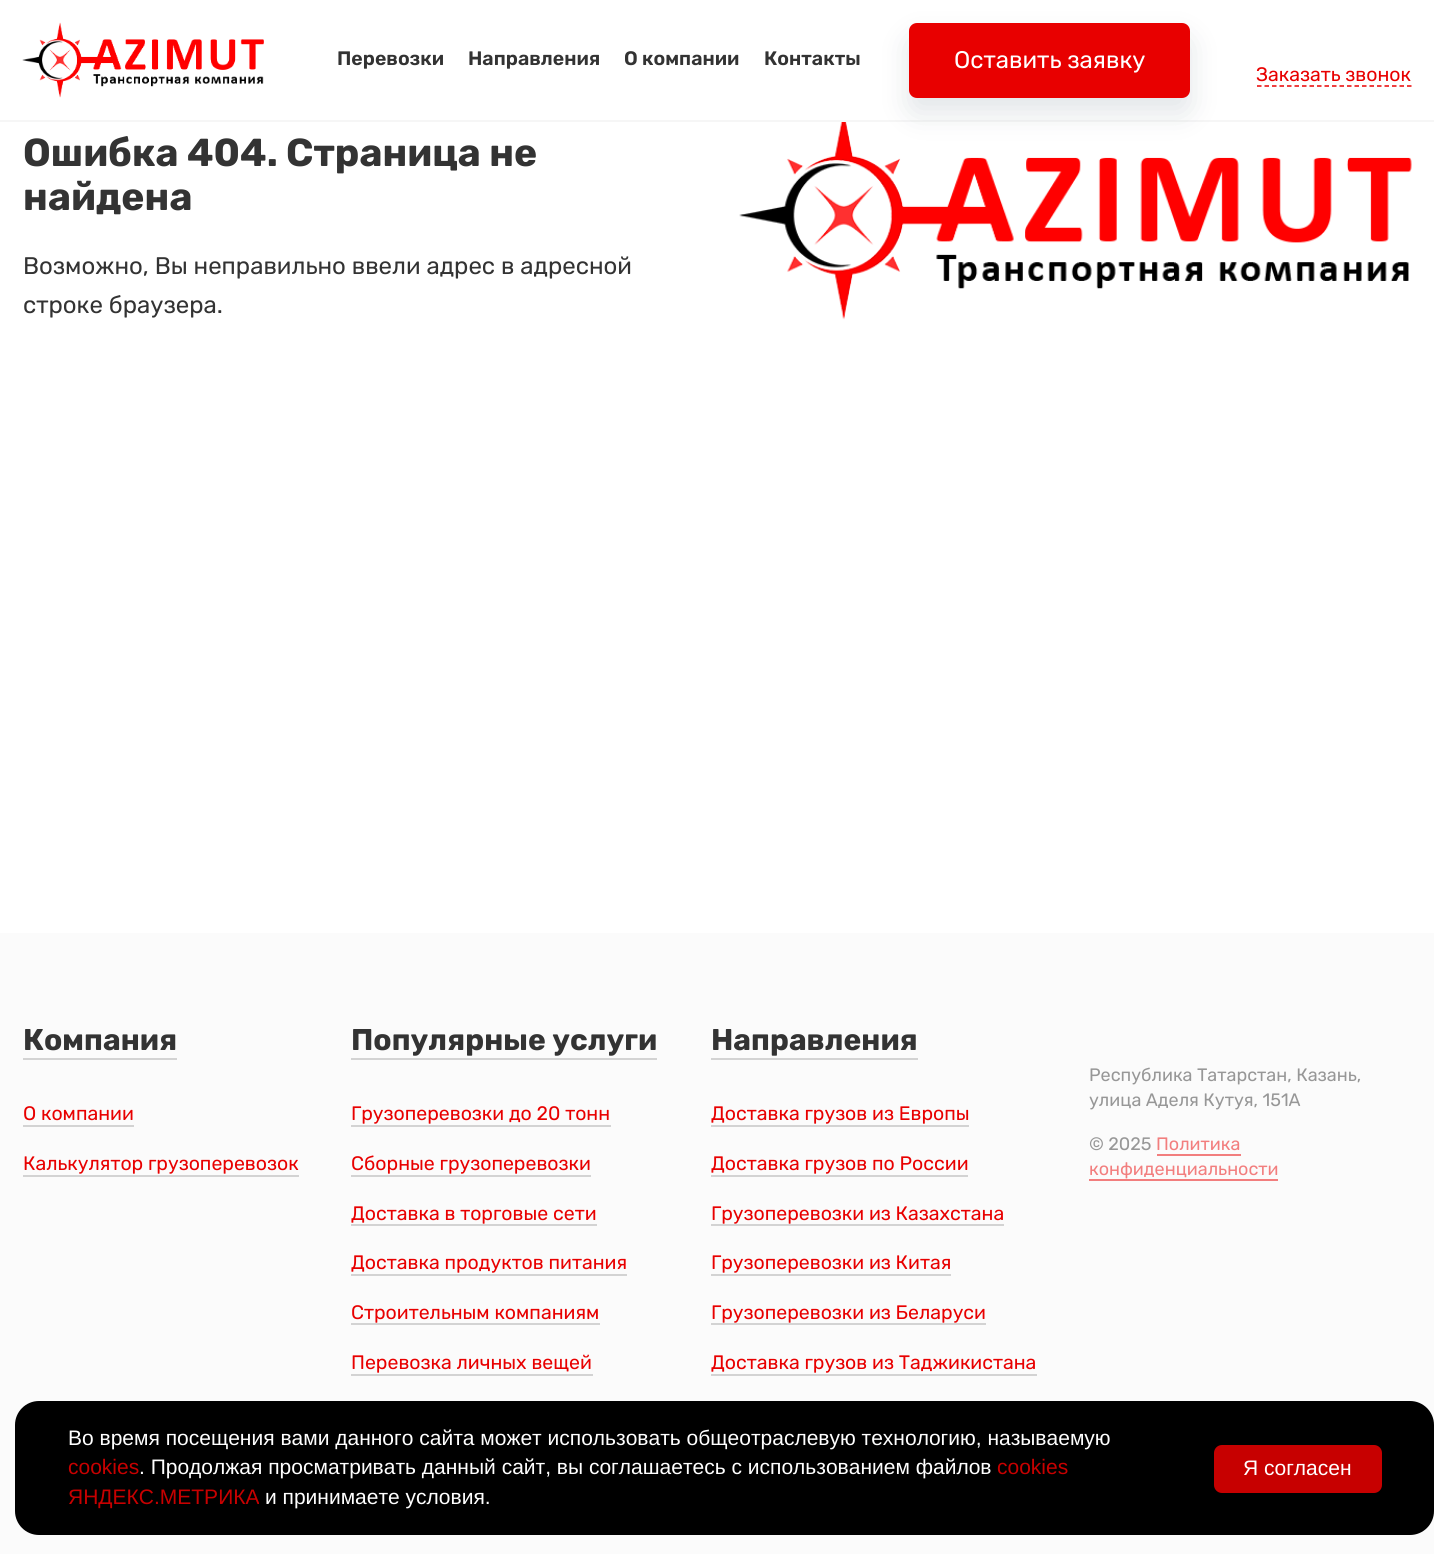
import math
import cairo

surface = cairo.ImageSurface(cairo.FORMAT_RGB24, 1434, 1554)
ctx = cairo.Context(surface)
options = cairo.FontOptions()
options.set_hint_metrics(cairo.HINT_METRICS_OFF)
options.set_hint_style(cairo.HINT_STYLE_NONE)
ctx.set_font_options(options)
ctx.set_miter_limit(4)


def round_rect(x, y, w, h, r):
    ctx.new_sub_path()
    for i, (u, v) in enumerate([(x + w - r, y + h - r), (x + r, y + h - r), (x + r, y + r), (x + w - r, y + r)]):
        ctx.arc(u, v, r, i * math.pi / 2, (i + 1) * math.pi / 2)
    ctx.close_path()


def shadow(x, y, w, h, r, blur, alpha):
    ctx.push_group_with_content(cairo.CONTENT_ALPHA)
    ctx.set_operator(cairo.OPERATOR_SOURCE)
    for i in range(15, -16, -2):
        e = blur * i / 6
        if min(w, h) + 2 * e > 0:
            ctx.set_source_rgba(0, 0, 0, alpha * math.erfc((i - 1) / 8.5) / 2)
            round_rect(x - e, y - e, w + 2 * e, h + 2 * e, max(0, min(r + e + blur * .6, min(w, h) / 2 + e)))
            ctx.fill()
    ctx.mask(ctx.pop_group())


def picture(path, x, y, w, h):
    ctx.save()
    ctx.set_source_surface(cairo.ImageSurface.create_from_png(path), x, y)
    ctx.rectangle(x, y, w, h)
    ctx.fill()
    ctx.restore()


ctx.set_source_rgb(1, 1, 1)
ctx.paint()
ctx.set_source_rgb(0.961, 0.961, 0.961)
ctx.rectangle(0, 120, 1434, 2)
ctx.fill()
picture("img1.png", 22, 22, 242, 76)
ctx.select_font_face("Rubik SemiBold")
ctx.set_font_size(19.5)
ctx.set_source_rgb(0.2, 0.2, 0.2)
ctx.move_to(337, 65)
ctx.show_text("Перевозки")
ctx.move_to(468, 65)
ctx.show_text("Направления")
ctx.move_to(624, 65)
ctx.show_text("О компании")
ctx.move_to(764, 65)
ctx.show_text("Контакты")
picture("img2.png", 739, 122, 673, 198)
ctx.set_source_rgb(0.282, 0.373, 0.431)
shadow(909, 38, 281, 75, 8, 15, 0.16)
ctx.set_source_rgb(0.91, 0, 0)
round_rect(909, 23, 281, 75, 8)
ctx.fill()
ctx.select_font_face("Rubik")
ctx.set_font_size(24)
ctx.set_source_rgb(1, 1, 1)
ctx.move_to(954, 68)
ctx.show_text("Оставить заявку")
ctx.set_font_size(19.5)
ctx.set_source_rgb(0.91, 0, 0)
ctx.move_to(1256, 81)
ctx.show_text("Заказать звонок")
ctx.new_path()
ctx.move_to(1257, 86)
ctx.line_to(1411.5, 86)
ctx.set_line_width(1.5)
ctx.set_dash([4.5, 3])
ctx.stroke()
ctx.select_font_face("Rubik", cairo.FONT_SLANT_NORMAL, cairo.FONT_WEIGHT_BOLD)
ctx.set_font_size(39)
ctx.set_source_rgb(0.2, 0.2, 0.2)
ctx.move_to(23, 166)
ctx.show_text("Ошибка 404. Страница не")
ctx.move_to(23, 210)
ctx.show_text("найдена")
ctx.select_font_face("Rubik")
ctx.set_font_size(24)
ctx.move_to(23, 274)
ctx.show_text("Возможно, Вы неправильно ввели адрес в адресной")
ctx.move_to(23, 313)
ctx.show_text("строке браузера.")
ctx.set_source_rgb(0.984, 0.984, 0.984)
ctx.rectangle(0, 933, 1434, 621)
ctx.fill()
ctx.select_font_face("Rubik", cairo.FONT_SLANT_NORMAL, cairo.FONT_WEIGHT_BOLD)
ctx.set_font_size(30)
ctx.set_source_rgb(0.2, 0.2, 0.2)
ctx.move_to(23, 1050)
ctx.show_text("Компания")
ctx.set_source_rgb(0.827, 0.827, 0.827)
ctx.rectangle(23, 1058, 154, 2)
ctx.fill()
ctx.select_font_face("Rubik")
ctx.set_font_size(19.5)
ctx.set_source_rgb(0.91, 0, 0)
ctx.move_to(23, 1120)
ctx.show_text("О компании")
ctx.set_source_rgb(0.827, 0.827, 0.827)
ctx.rectangle(23, 1125, 111, 2)
ctx.fill()
ctx.set_source_rgb(0.91, 0, 0)
ctx.move_to(23, 1170)
ctx.show_text("Калькулятор грузоперевозок")
ctx.set_source_rgb(0.827, 0.827, 0.827)
ctx.rectangle(23, 1175, 276, 2)
ctx.fill()
ctx.select_font_face("Rubik", cairo.FONT_SLANT_NORMAL, cairo.FONT_WEIGHT_BOLD)
ctx.set_font_size(30)
ctx.set_source_rgb(0.2, 0.2, 0.2)
ctx.move_to(351, 1050)
ctx.show_text("Популярные услуги")
ctx.set_source_rgb(0.827, 0.827, 0.827)
ctx.rectangle(351, 1058, 306, 2)
ctx.fill()
ctx.select_font_face("Rubik")
ctx.set_font_size(19.5)
ctx.set_source_rgb(0.91, 0, 0)
ctx.move_to(351, 1120)
ctx.show_text("Грузоперевозки до 20 тонн")
ctx.set_source_rgb(0.827, 0.827, 0.827)
ctx.rectangle(351, 1125, 260, 2)
ctx.fill()
ctx.set_source_rgb(0.91, 0, 0)
ctx.move_to(351, 1170)
ctx.show_text("Сборные грузоперевозки")
ctx.set_source_rgb(0.827, 0.827, 0.827)
ctx.rectangle(351, 1175, 240, 2)
ctx.fill()
ctx.set_source_rgb(0.91, 0, 0)
ctx.move_to(351, 1220)
ctx.show_text("Доставка в торговые сети")
ctx.set_source_rgb(0.827, 0.827, 0.827)
ctx.rectangle(351, 1224, 246, 2)
ctx.fill()
ctx.set_source_rgb(0.91, 0, 0)
ctx.move_to(351, 1269)
ctx.show_text("Доставка продуктов питания")
ctx.set_source_rgb(0.827, 0.827, 0.827)
ctx.rectangle(351, 1274, 276, 2)
ctx.fill()
ctx.set_source_rgb(0.91, 0, 0)
ctx.move_to(351, 1319)
ctx.show_text("Строительным компаниям")
ctx.set_source_rgb(0.827, 0.827, 0.827)
ctx.rectangle(351, 1323, 249, 2)
ctx.fill()
ctx.set_source_rgb(0.91, 0, 0)
ctx.move_to(351, 1369)
ctx.show_text("Перевозка личных вещей")
ctx.set_source_rgb(0.827, 0.827, 0.827)
ctx.rectangle(351, 1374, 242, 2)
ctx.fill()
ctx.select_font_face("Rubik", cairo.FONT_SLANT_NORMAL, cairo.FONT_WEIGHT_BOLD)
ctx.set_font_size(30)
ctx.set_source_rgb(0.2, 0.2, 0.2)
ctx.move_to(711, 1050)
ctx.show_text("Направления")
ctx.set_source_rgb(0.827, 0.827, 0.827)
ctx.rectangle(711, 1058, 207, 2)
ctx.fill()
ctx.select_font_face("Rubik")
ctx.set_font_size(19.5)
ctx.set_source_rgb(0.91, 0, 0)
ctx.move_to(711, 1120)
ctx.show_text("Доставка грузов из Европы")
ctx.set_source_rgb(0.827, 0.827, 0.827)
ctx.rectangle(711, 1125, 258, 2)
ctx.fill()
ctx.set_source_rgb(0.91, 0, 0)
ctx.move_to(711, 1170)
ctx.show_text("Доставка грузов по России")
ctx.set_source_rgb(0.827, 0.827, 0.827)
ctx.rectangle(711, 1175, 257, 2)
ctx.fill()
ctx.set_source_rgb(0.91, 0, 0)
ctx.move_to(711, 1220)
ctx.show_text("Грузоперевозки из Казахстана")
ctx.set_source_rgb(0.827, 0.827, 0.827)
ctx.rectangle(711, 1224, 293, 2)
ctx.fill()
ctx.set_source_rgb(0.91, 0, 0)
ctx.move_to(711, 1269)
ctx.show_text("Грузоперевозки из Китая")
ctx.set_source_rgb(0.827, 0.827, 0.827)
ctx.rectangle(711, 1274, 240, 2)
ctx.fill()
ctx.set_source_rgb(0.91, 0, 0)
ctx.move_to(711, 1319)
ctx.show_text("Грузоперевозки из Беларуси")
ctx.set_source_rgb(0.827, 0.827, 0.827)
ctx.rectangle(711, 1323, 275, 2)
ctx.fill()
ctx.set_source_rgb(0.91, 0, 0)
ctx.move_to(711, 1369)
ctx.show_text("Доставка грузов из Таджикистана")
ctx.set_source_rgb(0.827, 0.827, 0.827)
ctx.rectangle(711, 1374, 326, 2)
ctx.fill()
ctx.set_font_size(18)
ctx.set_source_rgb(0.592, 0.592, 0.592)
ctx.move_to(1089, 1081)
ctx.show_text("Республика Татарстан, Казань,")
ctx.move_to(1089, 1106)
ctx.show_text("улица Аделя Кутуя, 151А")
ctx.move_to(1089, 1150)
ctx.show_text("© 2025")
ctx.set_source_rgb(0.949, 0.494, 0.494)
ctx.move_to(1156, 1150)
ctx.show_text("Политика")
ctx.rectangle(1157, 1154, 84, 2)
ctx.fill()
ctx.move_to(1089, 1175)
ctx.show_text("конфиденциальности")
ctx.rectangle(1089, 1179, 189, 2)
ctx.fill()
ctx.set_source_rgb(0, 0, 0)
round_rect(15, 1401, 1419, 134, 24)
ctx.fill()
ctx.select_font_face("Liberation Sans")
ctx.set_font_size(21)
ctx.set_source_rgb(1, 1, 1)
ctx.move_to(68, 1445)
ctx.show_text("Во время посещения вами данного сайта может использовать общеотраслевую технологию, называемую")
ctx.set_source_rgb(0.78, 0, 0)
ctx.move_to(68, 1474)
ctx.show_text("cookies")
ctx.set_source_rgb(1, 1, 1)
ctx.move_to(139, 1474)
ctx.show_text(". Продолжая просматривать данный сайт, вы соглашаетесь с использованием файлов")
ctx.set_source_rgb(0.78, 0, 0)
ctx.move_to(997, 1474)
ctx.show_text("cookies")
ctx.move_to(68, 1504)
ctx.show_text("ЯНДЕКС.МЕТРИКА")
ctx.set_source_rgb(1, 1, 1)
ctx.move_to(265, 1504)
ctx.show_text("и принимаете условия.")
ctx.set_source_rgb(0.78, 0, 0)
round_rect(1214, 1445, 168, 48, 8)
ctx.fill()
ctx.set_source_rgb(1, 1, 1)
ctx.move_to(1243, 1475)
ctx.show_text("Я согласен")
surface.write_to_png("page.png")
